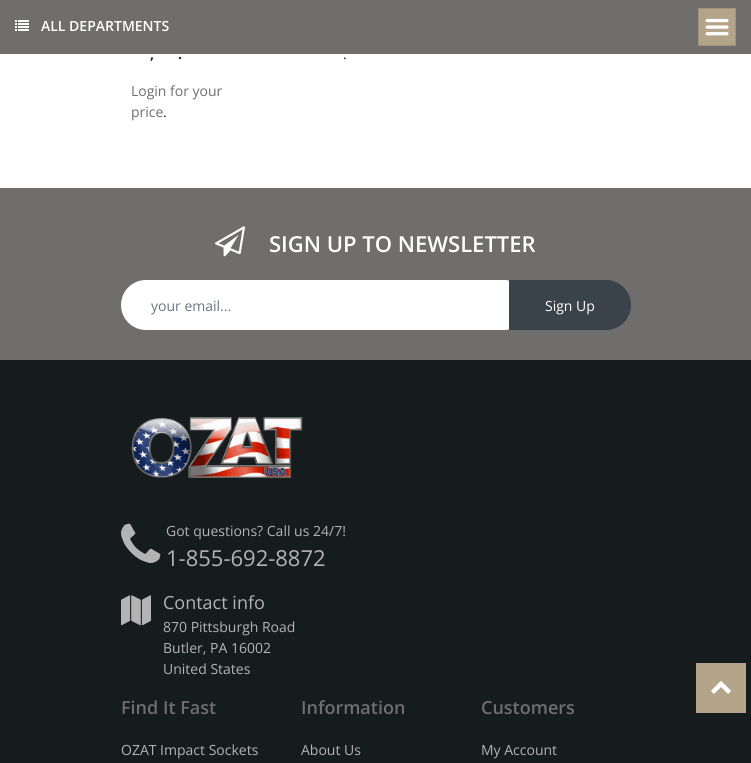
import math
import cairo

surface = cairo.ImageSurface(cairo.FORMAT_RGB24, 751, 763)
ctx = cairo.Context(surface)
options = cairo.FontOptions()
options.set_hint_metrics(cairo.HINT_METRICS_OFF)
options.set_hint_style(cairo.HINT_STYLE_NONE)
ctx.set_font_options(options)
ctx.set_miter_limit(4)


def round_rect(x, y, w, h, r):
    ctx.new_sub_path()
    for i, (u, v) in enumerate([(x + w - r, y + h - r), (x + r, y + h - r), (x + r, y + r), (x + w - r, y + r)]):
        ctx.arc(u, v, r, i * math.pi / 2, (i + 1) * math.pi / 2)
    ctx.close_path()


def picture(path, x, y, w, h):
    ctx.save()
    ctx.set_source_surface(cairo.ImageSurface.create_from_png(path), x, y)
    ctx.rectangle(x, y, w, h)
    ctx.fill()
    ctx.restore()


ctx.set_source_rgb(1, 1, 1)
ctx.paint()
ctx.set_source_rgb(0.435, 0.431, 0.427)
ctx.rectangle(0, 0, 751, 54)
ctx.fill()
picture("img1.png", 15, 20, 14, 11)
ctx.select_font_face("Open Sans SemiBold")
ctx.set_font_size(14)
ctx.set_source_rgb(1, 1, 1)
ctx.move_to(41, 31)
ctx.show_text("ALL DEPARTMENTS")
ctx.set_source_rgb(0.706, 0.643, 0.541)
ctx.rectangle(698.5, 8.5, 37, 37)
ctx.fill_preserve()
ctx.set_source_rgb(0.635, 0.58, 0.486)
ctx.set_line_width(1)
ctx.stroke()
picture("img2.png", 705, 18, 24, 18)
ctx.select_font_face("Open Sans", cairo.FONT_SLANT_NORMAL, cairo.FONT_WEIGHT_BOLD)
ctx.set_source_rgb(0.129, 0.145, 0.161)
ctx.move_to(150, 59)
ctx.show_text(",")
ctx.move_to(178, 59)
ctx.show_text(".")
ctx.select_font_face("Open Sans")
ctx.set_source_rgb(0.435, 0.431, 0.427)
ctx.move_to(131, 96)
ctx.show_text("Login for your")
ctx.move_to(131, 117)
ctx.show_text("price")
ctx.set_source_rgb(0.129, 0.145, 0.161)
ctx.move_to(163, 117)
ctx.show_text(".")
ctx.move_to(343, 59)
ctx.show_text(".")
ctx.set_source_rgb(0.435, 0.431, 0.427)
ctx.rectangle(0, 188, 751, 172)
ctx.fill()
picture("img3.png", 215, 226, 30, 31)
ctx.select_font_face("Open Sans SemiBold")
ctx.set_font_size(22)
ctx.set_source_rgb(1, 1, 1)
ctx.move_to(269, 252)
ctx.show_text("SIGN UP TO NEWSLETTER")
round_rect(121, 280, 408, 50, 25)
ctx.fill()
ctx.save()
ctx.rectangle(151, 296, 328, 19)
ctx.clip()
ctx.select_font_face("Open Sans")
ctx.set_font_size(14)
ctx.set_source_rgb(0.424, 0.459, 0.49)
ctx.move_to(151, 311)
ctx.show_text("your email...")
ctx.restore()
ctx.set_source_rgb(0.227, 0.259, 0.298)
ctx.new_path()
ctx.move_to(509.5, 280.5)
ctx.line_to(606, 280.5)
ctx.curve_to(619.5, 280.5, 630.5, 291.5, 630.5, 305)
ctx.curve_to(630.5, 318.5, 619.5, 329.5, 606, 329.5)
ctx.line_to(509.5, 329.5)
ctx.close_path()
ctx.fill_preserve()
ctx.stroke()
ctx.select_font_face("Open Sans")
ctx.set_font_size(14)
ctx.set_source_rgb(1, 1, 1)
ctx.move_to(545, 311)
ctx.show_text("Sign Up")
ctx.set_source_rgb(0.086, 0.106, 0.118)
ctx.rectangle(0, 360, 751, 403)
ctx.fill()
picture("img4.png", 131, 417, 172, 61)
picture("img5.png", 121, 523, 40, 40)
ctx.set_source_rgb(0.702, 0.702, 0.702)
ctx.move_to(166, 536)
ctx.show_text("Got questions? Call us 24/7!")
ctx.set_font_size(22)
ctx.move_to(166, 566)
ctx.show_text("1-855-692-8872")
picture("img6.png", 121, 595, 30, 31)
ctx.set_font_size(18)
ctx.move_to(163, 609)
ctx.show_text("Contact info")
ctx.set_font_size(14)
ctx.move_to(163, 632)
ctx.show_text("870 Pittsburgh Road")
ctx.move_to(163, 653)
ctx.show_text("Butler, PA 16002")
ctx.move_to(163, 674)
ctx.show_text("United States")
ctx.select_font_face("Open Sans SemiBold")
ctx.set_font_size(18)
ctx.set_source_rgb(0.435, 0.431, 0.427)
ctx.move_to(121, 714)
ctx.show_text("Find It Fast")
ctx.select_font_face("Open Sans")
ctx.set_font_size(14)
ctx.set_source_rgb(0.702, 0.702, 0.702)
ctx.move_to(121, 755)
ctx.show_text("OZAT Impact Sockets")
ctx.select_font_face("Open Sans SemiBold")
ctx.set_font_size(18)
ctx.set_source_rgb(0.435, 0.431, 0.427)
ctx.move_to(301, 714)
ctx.show_text("Information")
ctx.select_font_face("Open Sans")
ctx.set_font_size(14)
ctx.set_source_rgb(0.702, 0.702, 0.702)
ctx.move_to(301, 755)
ctx.show_text("About Us")
ctx.select_font_face("Open Sans SemiBold")
ctx.set_font_size(18)
ctx.set_source_rgb(0.435, 0.431, 0.427)
ctx.move_to(481, 714)
ctx.show_text("Customers")
ctx.select_font_face("Open Sans")
ctx.set_font_size(14)
ctx.set_source_rgb(0.702, 0.702, 0.702)
ctx.move_to(481, 755)
ctx.show_text("My Account")
ctx.set_source_rgb(0.706, 0.643, 0.541)
ctx.rectangle(696, 663, 50, 50)
ctx.fill()
picture("img7.png", 711, 681, 20, 13)
surface.write_to_png("page.png")
